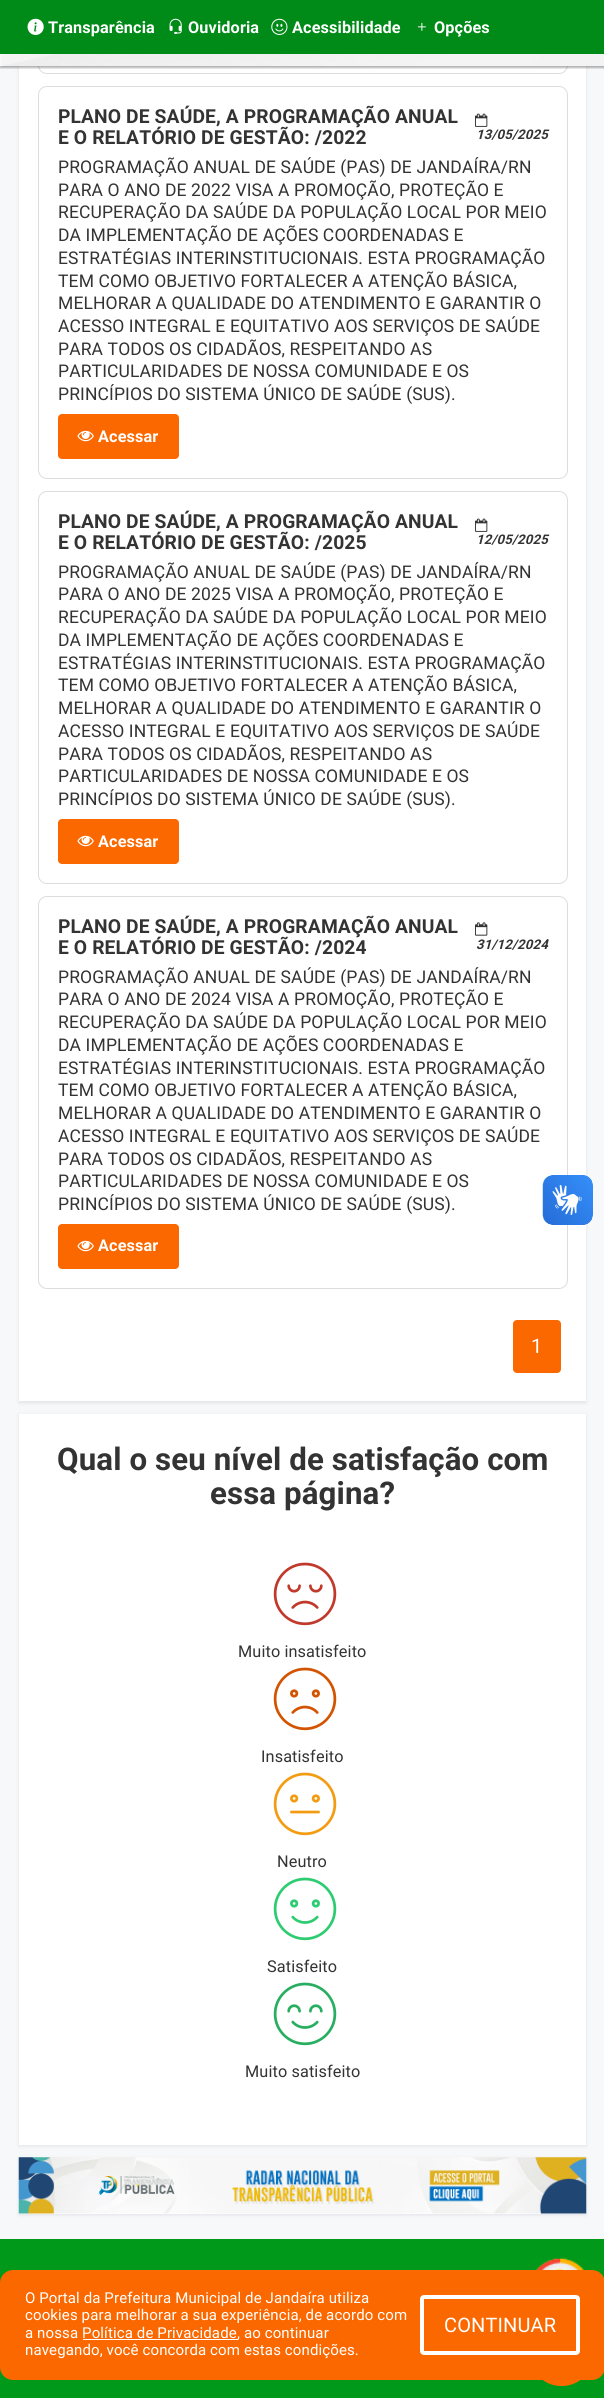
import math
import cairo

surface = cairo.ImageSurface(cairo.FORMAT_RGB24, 604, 2398)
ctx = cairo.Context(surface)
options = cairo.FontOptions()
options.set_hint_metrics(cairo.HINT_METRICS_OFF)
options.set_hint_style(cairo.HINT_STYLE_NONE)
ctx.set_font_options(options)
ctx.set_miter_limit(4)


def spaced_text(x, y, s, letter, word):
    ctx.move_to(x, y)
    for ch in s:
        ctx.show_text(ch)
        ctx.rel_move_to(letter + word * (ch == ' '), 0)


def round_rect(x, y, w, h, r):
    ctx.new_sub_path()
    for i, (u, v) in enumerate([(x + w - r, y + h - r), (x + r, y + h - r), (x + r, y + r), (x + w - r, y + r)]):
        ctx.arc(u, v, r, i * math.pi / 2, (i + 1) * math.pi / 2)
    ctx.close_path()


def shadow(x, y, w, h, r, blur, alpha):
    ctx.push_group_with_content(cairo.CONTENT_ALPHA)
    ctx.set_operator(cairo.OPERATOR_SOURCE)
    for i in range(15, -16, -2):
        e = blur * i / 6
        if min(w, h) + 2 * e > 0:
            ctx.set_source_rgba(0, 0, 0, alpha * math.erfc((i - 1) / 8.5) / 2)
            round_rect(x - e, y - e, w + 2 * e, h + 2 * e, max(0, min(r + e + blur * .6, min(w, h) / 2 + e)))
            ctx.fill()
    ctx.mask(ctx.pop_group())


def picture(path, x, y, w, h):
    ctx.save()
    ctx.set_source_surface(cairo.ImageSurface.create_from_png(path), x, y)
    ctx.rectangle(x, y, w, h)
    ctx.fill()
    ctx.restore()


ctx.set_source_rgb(0.965, 0.969, 0.973)
ctx.paint()
ctx.set_source_rgb(0.012, 0, 0.278)
shadow(19, -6, 567, 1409, 0, 2, 0.09)
ctx.set_source_rgb(1, 1, 1)
ctx.rectangle(19, 66, 567, 1335)
ctx.fill()
round_rect(38.5, -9.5, 529, 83, 8.5)
ctx.set_source_rgb(0.867, 0.867, 0.867)
ctx.set_line_width(1)
ctx.stroke()
ctx.save()
ctx.rectangle(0, 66, 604, 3)
ctx.clip()
ctx.set_source_rgb(0, 0, 0)
shadow(0, 1, 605, 67, 0, 1, 0.3)
ctx.restore()
picture("img1.png", 2, 54, 602, 12)
ctx.set_source_rgb(0, 0.541, 0.09)
ctx.rectangle(0, 0, 604, 54)
ctx.fill()
picture("img2.png", 27, 18, 17, 17)
ctx.select_font_face("Roboto", cairo.FONT_SLANT_NORMAL, cairo.FONT_WEIGHT_BOLD)
ctx.set_font_size(16.25)
ctx.set_source_rgb(1, 1, 1)
spaced_text(48, 33, "Transparência", 0.12, 0)
picture("img3.png", 169, 18, 13, 16)
spaced_text(188, 33, "Ouvidoria", 0.12, 0)
picture("img4.png", 271, 18, 17, 17)
spaced_text(292, 33, "Acessibilidade", 0.12, 0)
picture("img5.png", 417, 22, 9, 9)
spaced_text(434, 33, "Opções", 0.12, 0)
round_rect(38.5, 86.5, 529, 392, 8.5)
ctx.set_source_rgb(0.867, 0.867, 0.867)
ctx.stroke()
ctx.set_font_size(19.25)
ctx.set_source_rgb(0.2, 0.2, 0.2)
spaced_text(58, 123, "PLANO DE SAÚDE, A PROGRAMAÇÃO ANUAL", 0.12, 0)
spaced_text(58, 144, "E O RELATÓRIO DE GESTÃO: /2022", 0.12, 0)
picture("img6.png", 475, 113, 13, 14)
ctx.select_font_face("Roboto", cairo.FONT_SLANT_ITALIC, cairo.FONT_WEIGHT_BOLD)
ctx.set_font_size(13.25)
spaced_text(476, 139, "13/05/2025", 0.12, 0)
ctx.select_font_face("Roboto")
ctx.set_font_size(17.5)
spaced_text(58, 173, "PROGRAMAÇÃO ANUAL DE SAÚDE (PAS) DE JANDAÍRA/RN", 0.12, 0)
spaced_text(58, 196, "PARA O ANO DE 2022 VISA A PROMOÇÃO, PROTEÇÃO E", 0.12, 0)
spaced_text(58, 218, "RECUPERAÇÃO DA SAÚDE DA POPULAÇÃO LOCAL POR MEIO", 0.12, 0)
spaced_text(58, 241, "DA IMPLEMENTAÇÃO DE AÇÕES COORDENADAS E", 0.12, 0)
spaced_text(58, 264, "ESTRATÉGIAS INTERINSTITUCIONAIS. ESTA PROGRAMAÇÃO", 0.12, 0)
spaced_text(58, 287, "TEM COMO OBJETIVO FORTALECER A ATENÇÃO BÁSICA,", 0.12, 0)
spaced_text(58, 309, "MELHORAR A QUALIDADE DO ATENDIMENTO E GARANTIR O", 0.12, 0)
spaced_text(58, 332, "ACESSO INTEGRAL E EQUITATIVO AOS SERVIÇOS DE SAÚDE", 0.12, 0)
spaced_text(58, 355, "PARA TODOS OS CIDADÃOS, RESPEITANDO AS", 0.12, 0)
spaced_text(58, 377, "PARTICULARIDADES DE NOSSA COMUNIDADE E OS", 0.12, 0)
spaced_text(58, 400, "PRINCÍPIOS DO SISTEMA ÚNICO DE SAÚDE (SUS).", 0.12, 0)
ctx.set_source_rgb(0.988, 0.408, 0)
round_rect(58, 414, 121, 45, 4)
ctx.fill()
picture("img7.png", 77, 430, 17, 12)
ctx.select_font_face("Roboto", cairo.FONT_SLANT_NORMAL, cairo.FONT_WEIGHT_BOLD)
ctx.set_font_size(16.25)
ctx.set_source_rgb(1, 1, 1)
spaced_text(98, 442, "Acessar", 0.12, 0)
round_rect(38.5, 491.5, 529, 392, 8.5)
ctx.set_source_rgb(0.867, 0.867, 0.867)
ctx.stroke()
ctx.set_font_size(19.25)
ctx.set_source_rgb(0.2, 0.2, 0.2)
spaced_text(58, 528, "PLANO DE SAÚDE, A PROGRAMAÇÃO ANUAL", 0.12, 0)
spaced_text(58, 549, "E O RELATÓRIO DE GESTÃO: /2025", 0.12, 0)
picture("img6.png", 475, 518, 13, 14)
ctx.select_font_face("Roboto", cairo.FONT_SLANT_ITALIC, cairo.FONT_WEIGHT_BOLD)
ctx.set_font_size(13.25)
spaced_text(476, 544, "12/05/2025", 0.12, 0)
ctx.select_font_face("Roboto")
ctx.set_font_size(17.5)
spaced_text(58, 578, "PROGRAMAÇÃO ANUAL DE SAÚDE (PAS) DE JANDAÍRA/RN", 0.12, 0)
spaced_text(58, 600, "PARA O ANO DE 2025 VISA A PROMOÇÃO, PROTEÇÃO E", 0.12, 0)
spaced_text(58, 623, "RECUPERAÇÃO DA SAÚDE DA POPULAÇÃO LOCAL POR MEIO", 0.12, 0)
spaced_text(58, 646, "DA IMPLEMENTAÇÃO DE AÇÕES COORDENADAS E", 0.12, 0)
spaced_text(58, 669, "ESTRATÉGIAS INTERINSTITUCIONAIS. ESTA PROGRAMAÇÃO", 0.12, 0)
spaced_text(58, 691, "TEM COMO OBJETIVO FORTALECER A ATENÇÃO BÁSICA,", 0.12, 0)
spaced_text(58, 714, "MELHORAR A QUALIDADE DO ATENDIMENTO E GARANTIR O", 0.12, 0)
spaced_text(58, 737, "ACESSO INTEGRAL E EQUITATIVO AOS SERVIÇOS DE SAÚDE", 0.12, 0)
spaced_text(58, 760, "PARA TODOS OS CIDADÃOS, RESPEITANDO AS", 0.12, 0)
spaced_text(58, 782, "PARTICULARIDADES DE NOSSA COMUNIDADE E OS", 0.12, 0)
spaced_text(58, 805, "PRINCÍPIOS DO SISTEMA ÚNICO DE SAÚDE (SUS).", 0.12, 0)
ctx.set_source_rgb(0.988, 0.408, 0)
round_rect(58, 819, 121, 45, 4)
ctx.fill()
picture("img7.png", 77, 835, 17, 12)
ctx.select_font_face("Roboto", cairo.FONT_SLANT_NORMAL, cairo.FONT_WEIGHT_BOLD)
ctx.set_font_size(16.25)
ctx.set_source_rgb(1, 1, 1)
spaced_text(98, 847, "Acessar", 0.12, 0)
round_rect(38.5, 896.5, 529, 392, 8.5)
ctx.set_source_rgb(0.867, 0.867, 0.867)
ctx.stroke()
ctx.set_font_size(19.25)
ctx.set_source_rgb(0.2, 0.2, 0.2)
spaced_text(58, 933, "PLANO DE SAÚDE, A PROGRAMAÇÃO ANUAL", 0.12, 0)
spaced_text(58, 954, "E O RELATÓRIO DE GESTÃO: /2024", 0.12, 0)
picture("img8.png", 475, 922, 13, 14)
ctx.select_font_face("Roboto", cairo.FONT_SLANT_ITALIC, cairo.FONT_WEIGHT_BOLD)
ctx.set_font_size(13.25)
spaced_text(476, 949, "31/12/2024", 0.12, 0)
ctx.select_font_face("Roboto")
ctx.set_font_size(17.5)
spaced_text(58, 983, "PROGRAMAÇÃO ANUAL DE SAÚDE (PAS) DE JANDAÍRA/RN", 0.12, 0)
spaced_text(58, 1005, "PARA O ANO DE 2024 VISA A PROMOÇÃO, PROTEÇÃO E", 0.12, 0)
spaced_text(58, 1028, "RECUPERAÇÃO DA SAÚDE DA POPULAÇÃO LOCAL POR MEIO", 0.12, 0)
spaced_text(58, 1051, "DA IMPLEMENTAÇÃO DE AÇÕES COORDENADAS E", 0.12, 0)
spaced_text(58, 1074, "ESTRATÉGIAS INTERINSTITUCIONAIS. ESTA PROGRAMAÇÃO", 0.12, 0)
spaced_text(58, 1096, "TEM COMO OBJETIVO FORTALECER A ATENÇÃO BÁSICA,", 0.12, 0)
spaced_text(58, 1119, "MELHORAR A QUALIDADE DO ATENDIMENTO E GARANTIR O", 0.12, 0)
spaced_text(58, 1142, "ACESSO INTEGRAL E EQUITATIVO AOS SERVIÇOS DE SAÚDE", 0.12, 0)
spaced_text(58, 1165, "PARA TODOS OS CIDADÃOS, RESPEITANDO AS", 0.12, 0)
spaced_text(58, 1187, "PARTICULARIDADES DE NOSSA COMUNIDADE E OS", 0.12, 0)
spaced_text(58, 1210, "PRINCÍPIOS DO SISTEMA ÚNICO DE SAÚDE (SUS).", 0.12, 0)
ctx.set_source_rgb(0.988, 0.408, 0)
round_rect(58, 1224, 121, 45, 4)
ctx.fill()
picture("img7.png", 77, 1240, 17, 12)
ctx.select_font_face("Roboto", cairo.FONT_SLANT_NORMAL, cairo.FONT_WEIGHT_BOLD)
ctx.set_font_size(16.25)
ctx.set_source_rgb(1, 1, 1)
spaced_text(98, 1251, "Acessar", 0.12, 0)
ctx.set_source_rgb(0.988, 0.408, 0)
round_rect(513.5, 1320.5, 47, 52, 3.5)
ctx.fill_preserve()
ctx.stroke()
ctx.select_font_face("Roboto")
ctx.set_font_size(20)
ctx.set_source_rgb(1, 1, 1)
spaced_text(531, 1353, "1", 0.12, 0)
picture("img9.png", 542, 1175, 51, 50)
picture("img10.png", 543, 1175, 50, 50)
ctx.set_source_rgb(0.012, 0, 0.278)
shadow(19, 1415, 567, 731, 0, 2, 0.09)
ctx.set_source_rgb(1, 1, 1)
ctx.rectangle(19, 1414, 567, 731)
ctx.fill()
ctx.select_font_face("Roboto", cairo.FONT_SLANT_NORMAL, cairo.FONT_WEIGHT_BOLD)
ctx.set_font_size(31.25)
ctx.set_source_rgb(0.2, 0.2, 0.2)
spaced_text(57, 1470, "Qual o seu nível de satisfação com", 0.12, 0)
spaced_text(210, 1504, "essa página?", 0.12, 0)
picture("img11.png", 273, 1562, 64, 64)
ctx.select_font_face("Roboto")
ctx.set_font_size(16.25)
spaced_text(238, 1657, "Muito insatisfeito", 0.12, 0)
picture("img12.png", 273, 1667, 64, 64)
spaced_text(261, 1762, "Insatisfeito", 0.12, 0)
picture("img13.png", 273, 1772, 64, 64)
spaced_text(277, 1867, "Neutro", 0.12, 0)
picture("img14.png", 273, 1877, 64, 64)
spaced_text(267, 1972, "Satisfeito", 0.12, 0)
picture("img15.png", 273, 1982, 64, 64)
spaced_text(245, 2077, "Muito satisfeito", 0.12, 0)
ctx.set_source_rgb(0.012, 0, 0.278)
shadow(19, 2159, 567, 56, 0, 2, 0.09)
ctx.set_source_rgb(1, 1, 1)
ctx.rectangle(19, 2213, 567, 1)
ctx.fill()
picture("img16.png", 18, 2157, 569, 57)
ctx.set_source_rgb(0, 0.6, 0.102)
ctx.rectangle(0, 2239, 604, 159)
ctx.fill()
picture("img17.png", 536, 2258, 48, 12)
ctx.set_source_rgb(0.988, 0.408, 0)
round_rect(530, 2324, 63, 62, 31)
ctx.fill()
round_rect(0, 2270, 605, 110, 13)
ctx.fill()
ctx.set_font_size(15)
ctx.set_source_rgb(1, 1, 1)
spaced_text(25, 2303, "O Portal da Prefeitura Municipal de Jandaíra utiliza", 0.12, 0)
spaced_text(25, 2320, "cookies para melhorar a sua experiência, de acordo com", 0.12, 0)
spaced_text(25, 2338, "a nossa Política de Privacidade", 0.12, 0)
ctx.rectangle(83, 2339, 155, 1)
ctx.fill()
spaced_text(237, 2338, ", ao continuar", 0.12, 0)
spaced_text(25, 2355, "navegando, você concorda com estas condições.", 0.12, 0)
round_rect(422, 2297, 156, 56, 2)
ctx.set_line_width(4)
ctx.stroke()
ctx.set_font_size(20)
spaced_text(444, 2332, "CONTINUAR", 0.12, 0)
surface.write_to_png("page.png")
